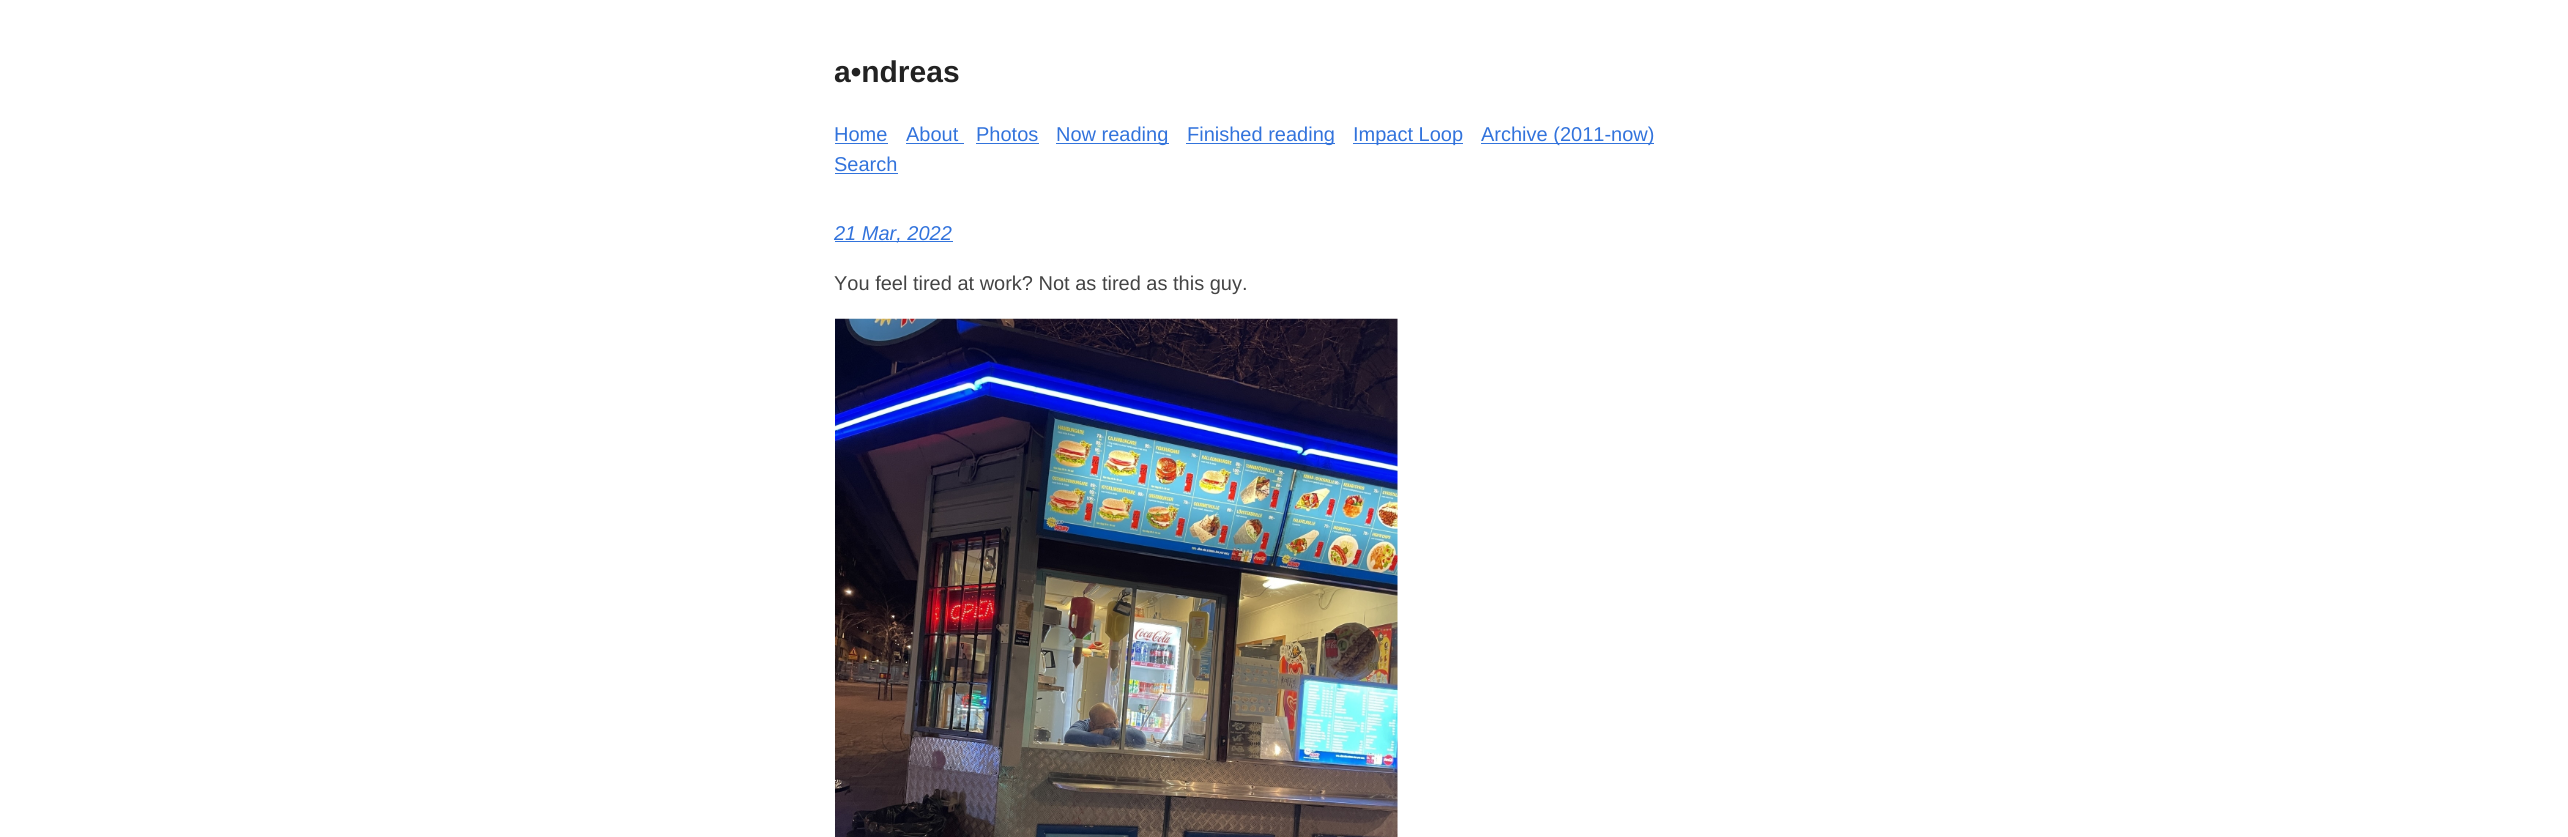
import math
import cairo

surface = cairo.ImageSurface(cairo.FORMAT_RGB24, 2568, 837)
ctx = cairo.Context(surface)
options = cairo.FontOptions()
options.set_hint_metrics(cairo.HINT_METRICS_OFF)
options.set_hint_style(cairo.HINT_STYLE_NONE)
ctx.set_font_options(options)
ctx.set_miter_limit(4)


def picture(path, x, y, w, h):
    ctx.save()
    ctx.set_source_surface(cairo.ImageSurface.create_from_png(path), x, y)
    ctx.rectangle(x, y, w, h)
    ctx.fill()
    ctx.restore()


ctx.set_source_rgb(1, 1, 1)
ctx.paint()
ctx.select_font_face("Liberation Sans", cairo.FONT_SLANT_NORMAL, cairo.FONT_WEIGHT_BOLD)
ctx.set_font_size(30)
ctx.set_source_rgb(0.133, 0.133, 0.133)
ctx.move_to(834, 82)
ctx.show_text("a•ndreas")
ctx.select_font_face("Liberation Sans")
ctx.set_font_size(20)
ctx.set_source_rgb(0.196, 0.451, 0.863)
ctx.move_to(834, 141)
ctx.show_text("Home")
ctx.rectangle(835, 143, 53, 1)
ctx.fill()
ctx.move_to(906, 141)
ctx.show_text("About")
ctx.rectangle(906, 143, 58, 1)
ctx.fill()
ctx.move_to(976, 141)
ctx.show_text("Photos")
ctx.rectangle(976, 143, 63, 1)
ctx.fill()
ctx.rectangle(1056, 143, 113, 1)
ctx.fill()
ctx.move_to(1056, 141)
ctx.show_text("Now reading")
ctx.rectangle(1186, 143, 149, 1)
ctx.fill()
ctx.move_to(1187, 141)
ctx.show_text("Finished reading")
ctx.rectangle(1353, 143, 110, 1)
ctx.fill()
ctx.move_to(1353, 141)
ctx.show_text("Impact Loop")
ctx.rectangle(1481, 143, 173, 1)
ctx.fill()
ctx.move_to(1481, 141)
ctx.show_text("Archive (2011-now)")
ctx.move_to(834, 171)
ctx.show_text("Search")
ctx.rectangle(835, 173, 63, 1)
ctx.fill()
ctx.rectangle(835, 241, 118, 1)
ctx.fill()
ctx.select_font_face("Liberation Sans", cairo.FONT_SLANT_ITALIC)
ctx.move_to(834, 240)
ctx.show_text("21 Mar, 2022")
ctx.select_font_face("Liberation Sans")
ctx.set_source_rgb(0.267, 0.267, 0.267)
ctx.move_to(834, 290)
ctx.show_text("You feel tired at work? Not as tired as this guy.")
picture("img1.png", 835, 318, 563, 519)
surface.write_to_png("page.png")
